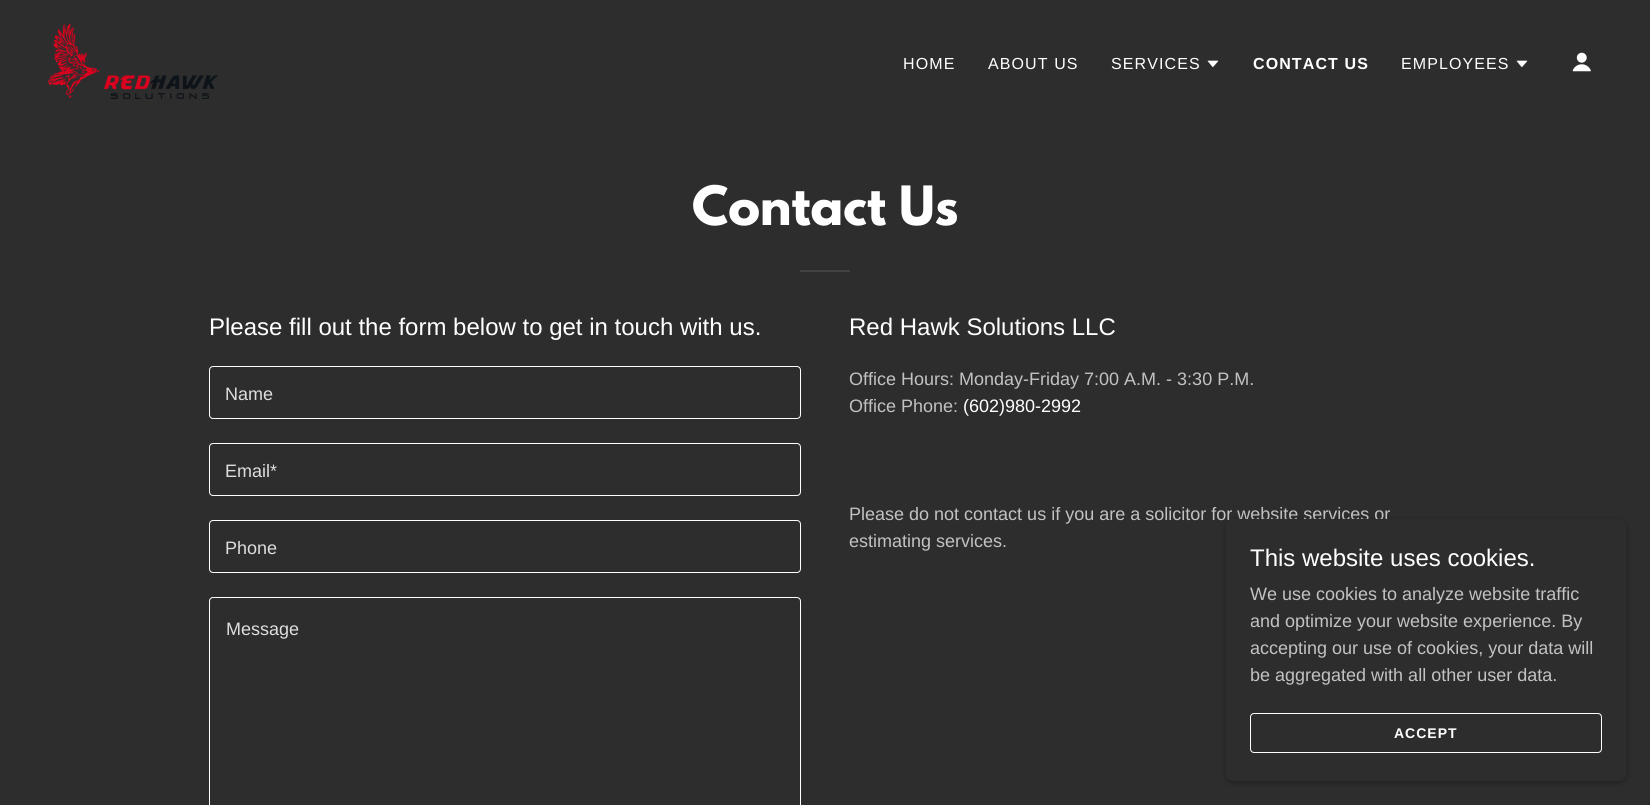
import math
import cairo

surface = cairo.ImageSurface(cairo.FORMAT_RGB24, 1650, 805)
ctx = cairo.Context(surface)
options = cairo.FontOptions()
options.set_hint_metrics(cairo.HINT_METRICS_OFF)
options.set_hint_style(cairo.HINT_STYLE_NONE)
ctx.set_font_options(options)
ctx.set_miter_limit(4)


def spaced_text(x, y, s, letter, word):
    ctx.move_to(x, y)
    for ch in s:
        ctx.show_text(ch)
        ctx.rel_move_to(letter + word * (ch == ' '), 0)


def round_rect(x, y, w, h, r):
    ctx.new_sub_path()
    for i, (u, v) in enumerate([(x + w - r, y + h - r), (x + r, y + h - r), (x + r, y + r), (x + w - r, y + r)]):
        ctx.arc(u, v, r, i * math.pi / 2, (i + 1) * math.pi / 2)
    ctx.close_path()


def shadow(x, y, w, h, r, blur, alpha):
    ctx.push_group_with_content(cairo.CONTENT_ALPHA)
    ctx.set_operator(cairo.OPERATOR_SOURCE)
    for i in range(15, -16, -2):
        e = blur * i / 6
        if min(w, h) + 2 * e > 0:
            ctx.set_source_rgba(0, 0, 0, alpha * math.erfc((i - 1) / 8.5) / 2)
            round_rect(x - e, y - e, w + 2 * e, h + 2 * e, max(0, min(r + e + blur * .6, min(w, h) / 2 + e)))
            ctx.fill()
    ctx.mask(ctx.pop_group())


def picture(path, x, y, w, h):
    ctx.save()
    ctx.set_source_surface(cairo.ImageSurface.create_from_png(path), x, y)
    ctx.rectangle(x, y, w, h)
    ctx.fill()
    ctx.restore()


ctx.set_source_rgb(0.18, 0.176, 0.176)
ctx.paint()
picture("img1.png", 48, 24, 170, 75)
ctx.select_font_face("Liberation Sans")
ctx.set_font_size(16)
ctx.set_source_rgb(1, 1, 1)
spaced_text(903, 69, "HOME", 1.1, 0)
spaced_text(988, 69, "ABOUT US", 1.1, 0)
spaced_text(1111, 69, "SERVICES", 1.1, 0)
picture("img2.png", 1207, 60, 12, 8)
ctx.select_font_face("Liberation Sans", cairo.FONT_SLANT_NORMAL, cairo.FONT_WEIGHT_BOLD)
spaced_text(1253, 69, "CONTACT US", 1.1, 0)
ctx.select_font_face("Liberation Sans")
spaced_text(1401, 69, "EMPLOYEES", 1.1, 0)
picture("img2.png", 1516, 60, 12, 8)
picture("img3.png", 1572, 52, 19, 20)
ctx.select_font_face("League Spartan", cairo.FONT_SLANT_NORMAL, cairo.FONT_WEIGHT_BOLD)
ctx.set_font_size(48)
ctx.move_to(692, 225)
ctx.show_text("Contact Us")
ctx.set_source_rgb(0.267, 0.263, 0.263)
ctx.rectangle(800, 270, 50, 2)
ctx.fill()
ctx.select_font_face("Liberation Sans")
ctx.set_font_size(24)
ctx.set_source_rgb(1, 1, 1)
ctx.move_to(209, 335)
ctx.show_text("Please fill out the form below to get in touch with us.")
round_rect(209.5, 366.5, 591, 52, 3.5)
ctx.set_line_width(1)
ctx.stroke()
ctx.set_font_size(18)
ctx.set_source_rgb(0.871, 0.871, 0.871)
ctx.move_to(225, 400)
ctx.show_text("Name")
round_rect(209.5, 443.5, 591, 52, 3.5)
ctx.set_source_rgb(1, 1, 1)
ctx.stroke()
ctx.set_source_rgb(0.871, 0.871, 0.871)
ctx.move_to(225, 477)
ctx.show_text("Email*")
round_rect(209.5, 520.5, 591, 52, 3.5)
ctx.set_source_rgb(1, 1, 1)
ctx.stroke()
ctx.set_source_rgb(0.871, 0.871, 0.871)
ctx.move_to(225, 554)
ctx.show_text("Phone")
round_rect(209.5, 597.5, 591, 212, 3.5)
ctx.set_source_rgb(1, 1, 1)
ctx.stroke()
ctx.set_source_rgb(0.871, 0.871, 0.871)
ctx.move_to(226, 635)
ctx.show_text("Message")
ctx.set_font_size(24)
ctx.set_source_rgb(1, 1, 1)
ctx.move_to(849, 335)
ctx.show_text("Red Hawk Solutions LLC")
ctx.set_font_size(18)
ctx.set_source_rgb(0.765, 0.761, 0.761)
ctx.move_to(849, 385)
ctx.show_text("Office Hours: Monday-Friday 7:00 A.M. - 3:30 P.M.")
ctx.move_to(849, 412)
ctx.show_text("Office Phone:")
ctx.set_source_rgb(1, 1, 1)
ctx.move_to(963, 412)
ctx.show_text("(602)980-2992")
ctx.set_source_rgb(0.765, 0.761, 0.761)
ctx.move_to(849, 520)
ctx.show_text("Please do not contact us if you are a solicitor for website services or")
ctx.move_to(849, 547)
ctx.show_text("estimating services.")
ctx.set_source_rgb(0, 0, 0)
shadow(1226, 521, 400, 262, 7, 3, 0.3)
ctx.set_source_rgb(0.18, 0.176, 0.176)
round_rect(1226, 519, 400, 262, 7)
ctx.fill()
ctx.set_font_size(24)
ctx.set_source_rgb(1, 1, 1)
ctx.move_to(1250, 566)
ctx.show_text("This website uses cookies.")
ctx.set_font_size(18)
ctx.set_source_rgb(0.765, 0.761, 0.761)
ctx.move_to(1250, 600)
ctx.show_text("We use cookies to analyze website traffic")
ctx.move_to(1250, 627)
ctx.show_text("and optimize your website experience. By")
ctx.move_to(1250, 654)
ctx.show_text("accepting our use of cookies, your data will")
ctx.move_to(1250, 681)
ctx.show_text("be aggregated with all other user data.")
round_rect(1250.5, 713.5, 351, 39, 3.5)
ctx.set_source_rgb(1, 1, 1)
ctx.stroke()
ctx.select_font_face("Liberation Sans", cairo.FONT_SLANT_NORMAL, cairo.FONT_WEIGHT_BOLD)
ctx.set_font_size(14)
spaced_text(1394, 738, "ACCEPT", 1, 0)
surface.write_to_png("page.png")
